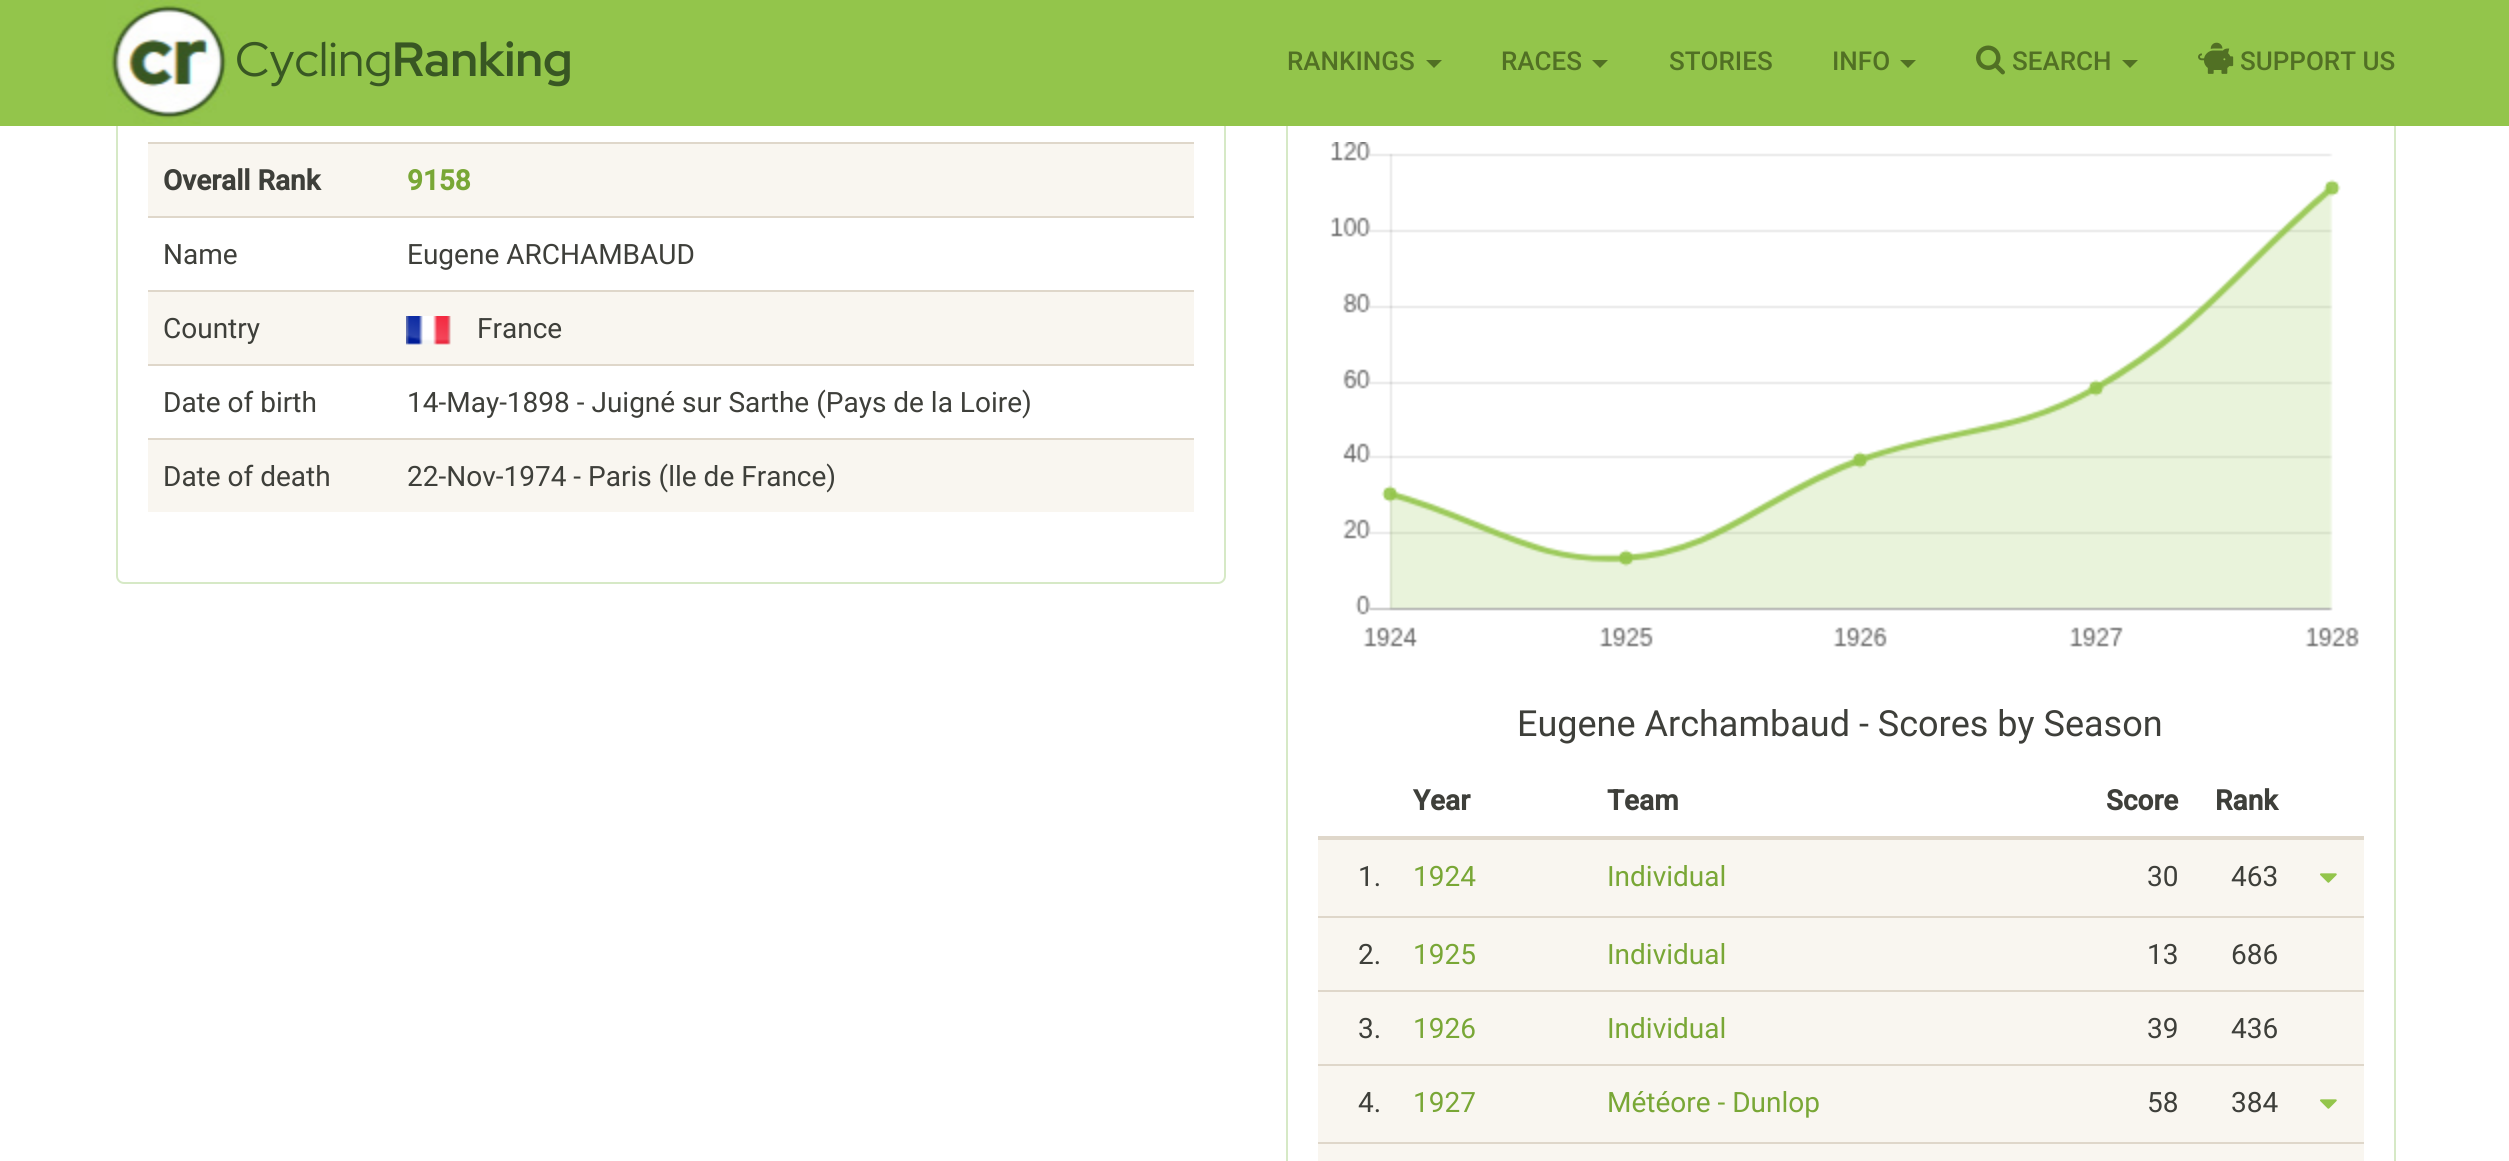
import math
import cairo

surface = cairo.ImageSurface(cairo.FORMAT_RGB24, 2509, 1161)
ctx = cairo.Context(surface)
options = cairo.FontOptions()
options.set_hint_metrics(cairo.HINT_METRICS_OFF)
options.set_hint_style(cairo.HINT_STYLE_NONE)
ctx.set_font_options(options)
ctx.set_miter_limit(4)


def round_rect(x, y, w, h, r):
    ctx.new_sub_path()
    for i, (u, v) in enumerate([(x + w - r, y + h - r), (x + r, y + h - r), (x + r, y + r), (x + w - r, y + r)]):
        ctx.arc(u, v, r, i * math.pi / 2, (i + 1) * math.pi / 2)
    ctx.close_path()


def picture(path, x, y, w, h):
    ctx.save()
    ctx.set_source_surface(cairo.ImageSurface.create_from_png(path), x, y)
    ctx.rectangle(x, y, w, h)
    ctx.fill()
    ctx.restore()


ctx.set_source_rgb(1, 1, 1)
ctx.paint()
round_rect(117, 25, 1108, 558, 7)
ctx.set_source_rgb(0.839, 0.914, 0.776)
ctx.stroke()
ctx.rectangle(1287, 25, 1108, 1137)
ctx.stroke()
ctx.set_source_rgb(0.576, 0.773, 0.294)
ctx.rectangle(0, 0, 2509, 126)
ctx.fill()
picture("img1.png", 106, 0, 124, 124)
ctx.select_font_face("Red Hat Display")
ctx.set_font_size(48)
ctx.set_source_rgb(0.22, 0.341, 0.137)
ctx.move_to(235, 76)
ctx.show_text("Cycling")
ctx.select_font_face("Red Hat Display", cairo.FONT_SLANT_NORMAL, cairo.FONT_WEIGHT_BOLD)
ctx.move_to(392, 76)
ctx.show_text("Ranking")
ctx.select_font_face("Roboto Medium")
ctx.set_font_size(26)
ctx.set_source_rgb(0.318, 0.439, 0.141)
ctx.move_to(1287, 70)
ctx.show_text("RANKINGS")
ctx.new_path()
ctx.move_to(1426, 60)
ctx.line_to(1442, 60)
ctx.line_to(1434, 68)
ctx.close_path()
ctx.fill()
ctx.move_to(1501, 70)
ctx.show_text("RACES")
ctx.new_path()
ctx.move_to(1592, 60)
ctx.line_to(1608, 60)
ctx.line_to(1600, 68)
ctx.close_path()
ctx.fill()
ctx.move_to(1669, 70)
ctx.show_text("STORIES")
ctx.move_to(1832, 70)
ctx.show_text("INFO")
ctx.new_path()
ctx.move_to(1900, 60)
ctx.line_to(1916, 60)
ctx.line_to(1908, 68)
ctx.close_path()
ctx.fill()
picture("img2.png", 1976, 45, 29, 30)
ctx.move_to(2012, 70)
ctx.show_text("SEARCH")
ctx.new_path()
ctx.move_to(2122, 60)
ctx.line_to(2138, 60)
ctx.line_to(2130, 68)
ctx.close_path()
ctx.fill()
picture("img3.png", 2198, 42, 36, 32)
ctx.move_to(2240, 70)
ctx.show_text("SUPPORT US")
ctx.set_source_rgb(0.973, 0.961, 0.941)
ctx.rectangle(148, 144, 1046, 72)
ctx.fill()
ctx.select_font_face("Roboto", cairo.FONT_SLANT_NORMAL, cairo.FONT_WEIGHT_BOLD)
ctx.set_font_size(28)
ctx.set_source_rgb(0.243, 0.247, 0.227)
ctx.move_to(163, 190)
ctx.show_text("Overall Rank")
ctx.set_source_rgb(0.875, 0.843, 0.792)
ctx.rectangle(148, 142, 1046, 2)
ctx.fill()
ctx.set_source_rgb(0.475, 0.655, 0.212)
ctx.move_to(407, 190)
ctx.show_text("9158")
ctx.select_font_face("Roboto")
ctx.set_source_rgb(0.243, 0.247, 0.227)
ctx.move_to(163, 264)
ctx.show_text("Name")
ctx.set_source_rgb(0.875, 0.843, 0.792)
ctx.rectangle(148, 216, 1046, 2)
ctx.fill()
ctx.set_source_rgb(0.243, 0.247, 0.227)
ctx.move_to(407, 264)
ctx.show_text("Eugene ARCHAMBAUD")
ctx.set_source_rgb(0.973, 0.961, 0.941)
ctx.rectangle(148, 292, 1046, 72)
ctx.fill()
ctx.set_source_rgb(0.243, 0.247, 0.227)
ctx.move_to(163, 338)
ctx.show_text("Country")
ctx.set_source_rgb(0.875, 0.843, 0.792)
ctx.rectangle(148, 290, 1046, 2)
ctx.fill()
picture("img4.png", 406, 316, 45, 29)
ctx.set_source_rgb(0.243, 0.247, 0.227)
ctx.move_to(477, 338)
ctx.show_text("France")
ctx.move_to(163, 412)
ctx.show_text("Date of birth")
ctx.set_source_rgb(0.875, 0.843, 0.792)
ctx.rectangle(148, 364, 1046, 2)
ctx.fill()
ctx.set_source_rgb(0.243, 0.247, 0.227)
ctx.move_to(407, 412)
ctx.show_text("14-May-1898 - Juigné sur Sarthe (Pays de la Loire)")
ctx.set_source_rgb(0.973, 0.961, 0.941)
ctx.rectangle(148, 440, 1046, 72)
ctx.fill()
ctx.set_source_rgb(0.243, 0.247, 0.227)
ctx.move_to(163, 486)
ctx.show_text("Date of death")
ctx.set_source_rgb(0.875, 0.843, 0.792)
ctx.rectangle(148, 438, 1046, 2)
ctx.fill()
ctx.set_source_rgb(0.243, 0.247, 0.227)
ctx.move_to(407, 486)
ctx.show_text("22-Nov-1974 - Paris (lle de France)")
picture("img5.png", 1330, 142, 1029, 505)
ctx.set_font_size(36)
ctx.move_to(1517, 736)
ctx.show_text("Eugene Archambaud - Scores by Season")
ctx.select_font_face("Roboto", cairo.FONT_SLANT_NORMAL, cairo.FONT_WEIGHT_BOLD)
ctx.set_font_size(28)
ctx.move_to(1413, 810)
ctx.show_text("Year")
ctx.move_to(1607, 810)
ctx.show_text("Team")
ctx.move_to(2106, 810)
ctx.show_text("Score")
ctx.move_to(2215, 810)
ctx.show_text("Rank")
ctx.set_source_rgb(0.875, 0.843, 0.792)
ctx.rectangle(1318, 836, 1046, 4)
ctx.fill()
ctx.set_source_rgb(0.973, 0.961, 0.941)
ctx.rectangle(1318, 840, 1046, 76)
ctx.fill()
ctx.select_font_face("Roboto")
ctx.set_source_rgb(0.243, 0.247, 0.227)
ctx.move_to(1358, 886)
ctx.show_text("1.")
ctx.set_source_rgb(0.475, 0.655, 0.212)
ctx.move_to(1413, 886)
ctx.show_text("1924")
ctx.move_to(1607, 886)
ctx.show_text("Individual")
ctx.set_source_rgb(0.243, 0.247, 0.227)
ctx.move_to(2147, 886)
ctx.show_text("30")
ctx.move_to(2231, 886)
ctx.show_text("463")
picture("img6.png", 2320, 873, 17, 10)
ctx.set_source_rgb(0.875, 0.843, 0.792)
ctx.rectangle(1318, 916, 1046, 2)
ctx.fill()
ctx.set_source_rgb(0.973, 0.961, 0.941)
ctx.rectangle(1318, 918, 1046, 72)
ctx.fill()
ctx.set_source_rgb(0.243, 0.247, 0.227)
ctx.move_to(1358, 964)
ctx.show_text("2.")
ctx.set_source_rgb(0.475, 0.655, 0.212)
ctx.move_to(1413, 964)
ctx.show_text("1925")
ctx.move_to(1607, 964)
ctx.show_text("Individual")
ctx.set_source_rgb(0.243, 0.247, 0.227)
ctx.move_to(2147, 964)
ctx.show_text("13")
ctx.move_to(2231, 964)
ctx.show_text("686")
ctx.set_source_rgb(0.875, 0.843, 0.792)
ctx.rectangle(1318, 990, 1046, 2)
ctx.fill()
ctx.set_source_rgb(0.973, 0.961, 0.941)
ctx.rectangle(1318, 992, 1046, 72)
ctx.fill()
ctx.set_source_rgb(0.243, 0.247, 0.227)
ctx.move_to(1358, 1038)
ctx.show_text("3.")
ctx.set_source_rgb(0.475, 0.655, 0.212)
ctx.move_to(1413, 1038)
ctx.show_text("1926")
ctx.move_to(1607, 1038)
ctx.show_text("Individual")
ctx.set_source_rgb(0.243, 0.247, 0.227)
ctx.move_to(2147, 1038)
ctx.show_text("39")
ctx.move_to(2231, 1038)
ctx.show_text("436")
ctx.set_source_rgb(0.875, 0.843, 0.792)
ctx.rectangle(1318, 1064, 1046, 2)
ctx.fill()
ctx.set_source_rgb(0.973, 0.961, 0.941)
ctx.rectangle(1318, 1066, 1046, 76)
ctx.fill()
picture("img6.png", 2320, 1099, 17, 10)
ctx.set_source_rgb(0.243, 0.247, 0.227)
ctx.move_to(1358, 1112)
ctx.show_text("4.")
ctx.set_source_rgb(0.475, 0.655, 0.212)
ctx.move_to(1413, 1112)
ctx.show_text("1927")
ctx.move_to(1607, 1112)
ctx.show_text("Météore - Dunlop")
ctx.set_source_rgb(0.243, 0.247, 0.227)
ctx.move_to(2147, 1112)
ctx.show_text("58")
ctx.move_to(2231, 1112)
ctx.show_text("384")
ctx.set_source_rgb(0.875, 0.843, 0.792)
ctx.rectangle(1318, 1142, 1046, 2)
ctx.fill()
ctx.set_source_rgb(0.973, 0.961, 0.941)
ctx.rectangle(1318, 1144, 1046, 17)
ctx.fill()
surface.write_to_png("page.png")
